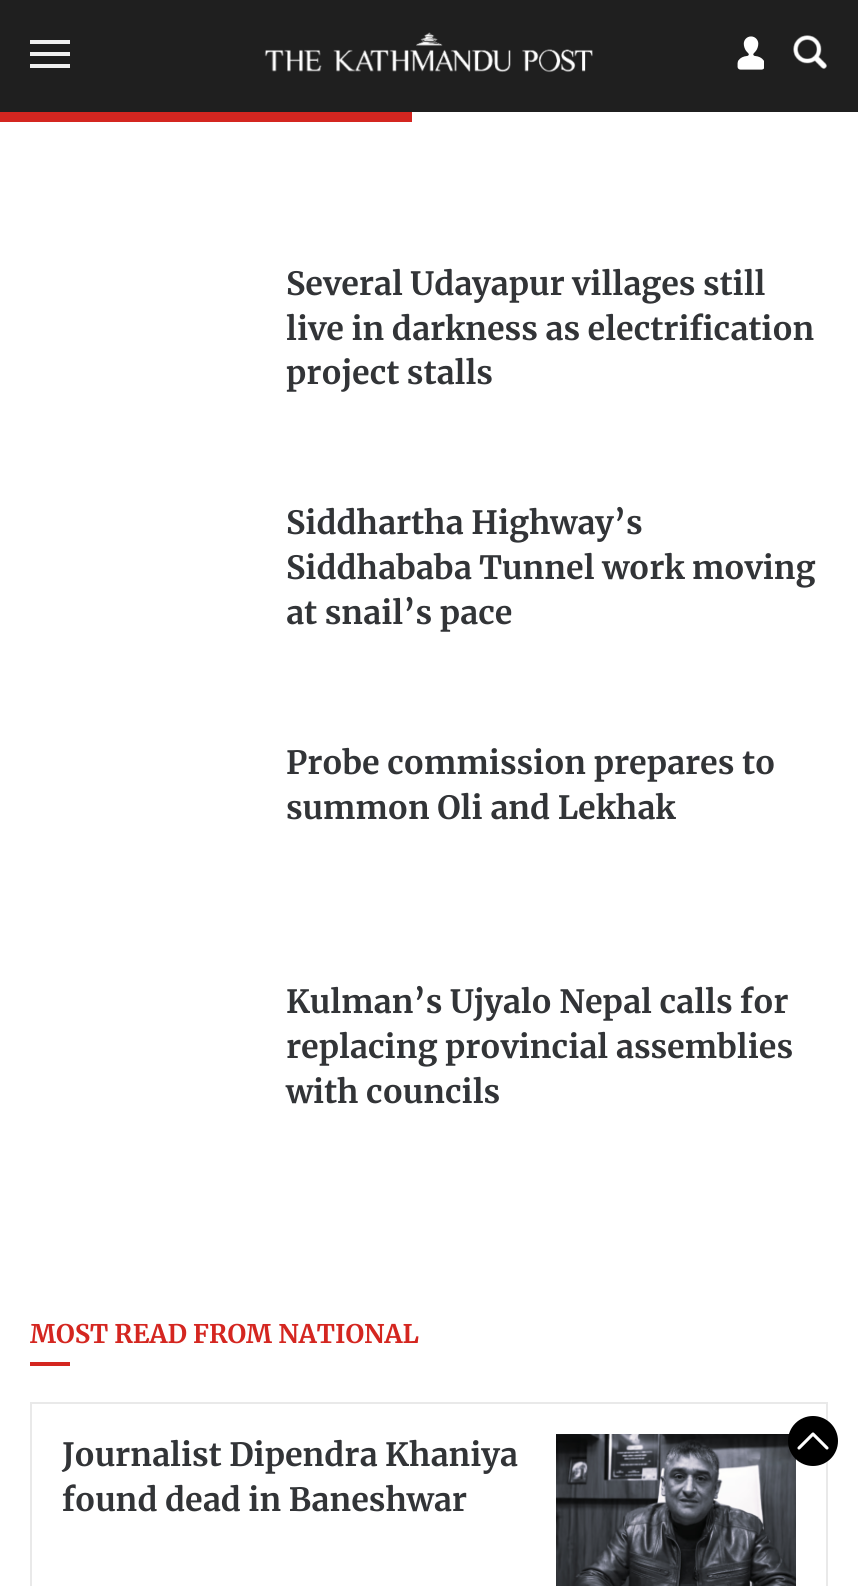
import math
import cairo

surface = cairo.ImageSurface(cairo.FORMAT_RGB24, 858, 1586)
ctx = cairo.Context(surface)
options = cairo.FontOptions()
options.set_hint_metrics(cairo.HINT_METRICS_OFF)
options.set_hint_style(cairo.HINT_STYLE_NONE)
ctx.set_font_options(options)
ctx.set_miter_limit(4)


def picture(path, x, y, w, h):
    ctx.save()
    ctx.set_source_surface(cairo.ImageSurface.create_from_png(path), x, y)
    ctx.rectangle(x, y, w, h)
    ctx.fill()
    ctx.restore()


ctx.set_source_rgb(1, 1, 1)
ctx.paint()
ctx.set_source_rgb(0.122, 0.122, 0.122)
ctx.rectangle(0, 0, 858, 112)
ctx.fill()
ctx.set_source_rgb(0.941, 0.941, 0.941)
ctx.rectangle(30, 40, 40, 4)
ctx.fill()
ctx.rectangle(30, 52, 40, 4)
ctx.fill()
ctx.rectangle(30, 64, 40, 4)
ctx.fill()
picture("img1.png", 737, 36, 27, 34)
picture("img2.png", 793, 35, 34, 34)
picture("img3.png", 264, 32, 329, 41)
ctx.set_source_rgb(0.831, 0.149, 0.125)
ctx.rectangle(0, 112, 412, 10)
ctx.fill()
ctx.select_font_face("Merriweather", cairo.FONT_SLANT_NORMAL, cairo.FONT_WEIGHT_BOLD)
ctx.set_font_size(32)
ctx.set_source_rgb(0.196, 0.204, 0.216)
ctx.move_to(286, 295)
ctx.show_text("Several Udayapur villages still")
ctx.move_to(286, 340)
ctx.show_text("live in darkness as electrification")
ctx.move_to(286, 384)
ctx.show_text("project stalls")
ctx.move_to(286, 534)
ctx.show_text("Siddhartha Highway’s")
ctx.move_to(286, 579)
ctx.show_text("Siddhababa Tunnel work moving")
ctx.move_to(286, 624)
ctx.show_text("at snail’s pace")
ctx.move_to(286, 774)
ctx.show_text("Probe commission prepares to")
ctx.move_to(286, 819)
ctx.show_text("summon Oli and Lekhak")
ctx.move_to(286, 1013)
ctx.show_text("Kulman’s Ujyalo Nepal calls for")
ctx.move_to(286, 1058)
ctx.show_text("replacing provincial assemblies")
ctx.move_to(286, 1103)
ctx.show_text("with councils")
ctx.set_font_size(25.6)
ctx.set_source_rgb(0.831, 0.149, 0.125)
ctx.move_to(30, 1343)
ctx.show_text("MOST READ FROM NATIONAL")
ctx.rectangle(30, 1362, 40, 4)
ctx.fill()
ctx.rectangle(31, 1403, 796, 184)
ctx.set_source_rgb(0.914, 0.914, 0.914)
ctx.stroke()
ctx.set_font_size(32)
ctx.set_source_rgb(0.196, 0.204, 0.216)
ctx.move_to(62, 1466)
ctx.show_text("Journalist Dipendra Khaniya")
ctx.move_to(62, 1511)
ctx.show_text("found dead in Baneshwar")
picture("img4.png", 556, 1434, 240, 152)
ctx.set_source_rgb(0, 0, 0)
ctx.arc(813, 1441, 25, 0, 2 * math.pi)
ctx.fill()
ctx.new_path()
ctx.move_to(813, 1434)
ctx.line_to(827, 1448)
ctx.move_to(799, 1448)
ctx.line_to(813, 1434)
ctx.set_source_rgb(1, 1, 1)
ctx.set_line_width(3.1)
ctx.set_line_cap(cairo.LINE_CAP_ROUND)
ctx.set_line_join(cairo.LINE_JOIN_ROUND)
ctx.stroke()
surface.write_to_png("page.png")
